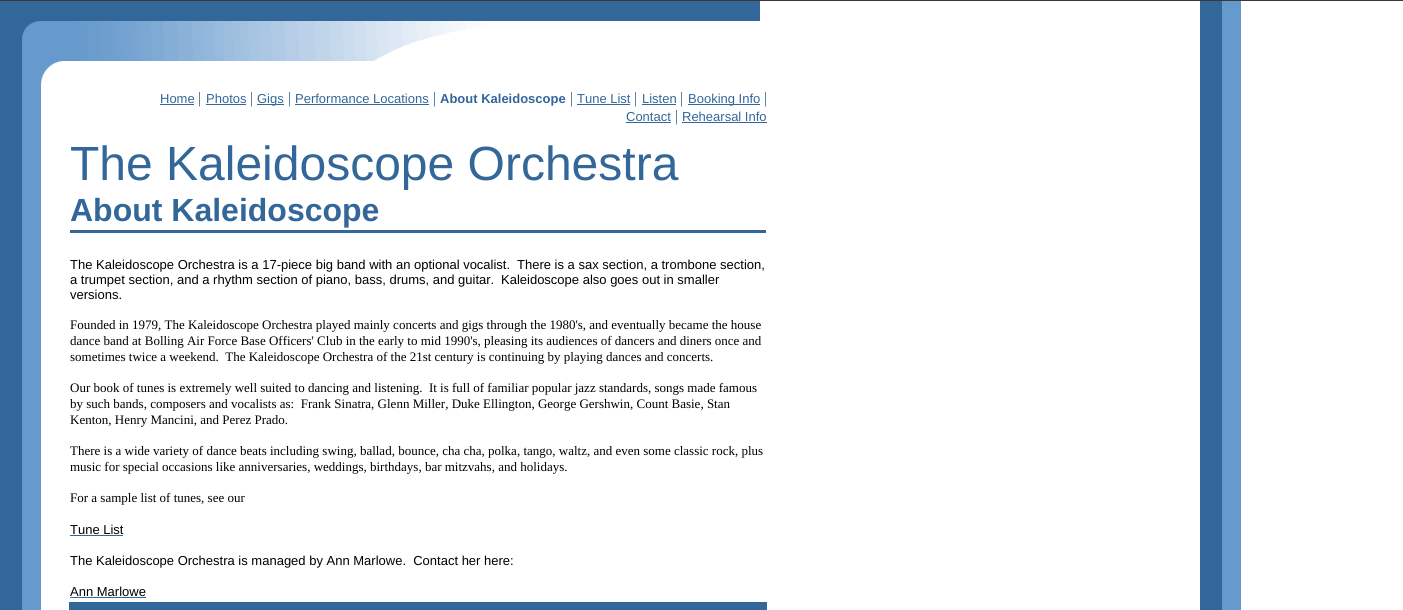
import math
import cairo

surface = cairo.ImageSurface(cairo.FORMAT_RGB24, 1403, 610)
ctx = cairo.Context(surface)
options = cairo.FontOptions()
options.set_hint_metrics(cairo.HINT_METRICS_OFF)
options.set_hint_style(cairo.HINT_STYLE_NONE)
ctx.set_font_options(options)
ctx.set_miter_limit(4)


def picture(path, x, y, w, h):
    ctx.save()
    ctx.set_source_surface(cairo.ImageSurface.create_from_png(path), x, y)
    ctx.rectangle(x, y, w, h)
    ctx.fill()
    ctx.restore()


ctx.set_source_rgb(1, 1, 1)
ctx.paint()
picture("img1.png", 0, 1, 1241, 609)
ctx.set_source_rgb(0.224, 0.224, 0.224)
ctx.rectangle(0, 0, 1403, 1)
ctx.fill()
ctx.set_source_rgb(0.2, 0.4, 0.6)
ctx.rectangle(22, 1, 738, 20)
ctx.fill()
picture("img2.png", 22, 21, 40, 63)
picture("img3.png", 62, 21, 425, 40)
ctx.select_font_face("Liberation Sans")
ctx.set_font_size(13)
ctx.move_to(160, 103)
ctx.show_text("Home")
ctx.rectangle(160, 104, 34, 1)
ctx.fill()
ctx.select_font_face("Liberation Serif")
ctx.set_font_size(16)
ctx.move_to(198, 103)
ctx.show_text("|")
ctx.select_font_face("Liberation Sans")
ctx.set_font_size(13)
ctx.move_to(206, 103)
ctx.show_text("Photos")
ctx.rectangle(206, 104, 40, 1)
ctx.fill()
ctx.select_font_face("Liberation Serif")
ctx.set_font_size(16)
ctx.move_to(250, 103)
ctx.show_text("|")
ctx.rectangle(257, 104, 27, 1)
ctx.fill()
ctx.select_font_face("Liberation Sans")
ctx.set_font_size(13)
ctx.move_to(257, 103)
ctx.show_text("Gigs")
ctx.select_font_face("Liberation Serif")
ctx.set_font_size(16)
ctx.move_to(288, 103)
ctx.show_text("|")
ctx.select_font_face("Liberation Sans")
ctx.set_font_size(13)
ctx.move_to(295, 103)
ctx.show_text("Performance Locations")
ctx.rectangle(295, 104, 134, 1)
ctx.fill()
ctx.select_font_face("Liberation Serif")
ctx.set_font_size(16)
ctx.move_to(433, 103)
ctx.show_text("|")
ctx.select_font_face("Liberation Sans", cairo.FONT_SLANT_NORMAL, cairo.FONT_WEIGHT_BOLD)
ctx.set_font_size(13)
ctx.move_to(440, 103)
ctx.show_text("About Kaleidoscope")
ctx.select_font_face("Liberation Serif")
ctx.set_font_size(16)
ctx.move_to(570, 103)
ctx.show_text("|")
ctx.select_font_face("Liberation Sans")
ctx.set_font_size(13)
ctx.move_to(577, 103)
ctx.show_text("Tune List")
ctx.rectangle(577, 104, 53, 1)
ctx.fill()
ctx.select_font_face("Liberation Serif")
ctx.set_font_size(16)
ctx.move_to(634, 103)
ctx.show_text("|")
ctx.select_font_face("Liberation Sans")
ctx.set_font_size(13)
ctx.move_to(642, 103)
ctx.show_text("Listen")
ctx.rectangle(642, 104, 34, 1)
ctx.fill()
ctx.select_font_face("Liberation Serif")
ctx.set_font_size(16)
ctx.move_to(680, 103)
ctx.show_text("|")
ctx.rectangle(688, 104, 72, 1)
ctx.fill()
ctx.select_font_face("Liberation Sans")
ctx.set_font_size(13)
ctx.move_to(688, 103)
ctx.show_text("Booking Info")
ctx.select_font_face("Liberation Serif")
ctx.set_font_size(16)
ctx.move_to(764, 103)
ctx.show_text("|")
ctx.select_font_face("Liberation Sans")
ctx.set_font_size(13)
ctx.move_to(626, 121)
ctx.show_text("Contact")
ctx.rectangle(626, 122, 45, 1)
ctx.fill()
ctx.select_font_face("Liberation Serif")
ctx.set_font_size(16)
ctx.move_to(675, 121)
ctx.show_text("|")
ctx.select_font_face("Liberation Sans")
ctx.set_font_size(13)
ctx.move_to(682, 121)
ctx.show_text("Rehearsal Info")
ctx.rectangle(682, 122, 85, 1)
ctx.fill()
ctx.set_font_size(48)
ctx.move_to(70, 180)
ctx.show_text("The Kaleidoscope Orchestra")
ctx.select_font_face("Liberation Sans", cairo.FONT_SLANT_NORMAL, cairo.FONT_WEIGHT_BOLD)
ctx.set_font_size(32)
ctx.move_to(70, 221)
ctx.show_text("About Kaleidoscope")
ctx.rectangle(70, 230, 696, 3)
ctx.fill()
ctx.select_font_face("Liberation Sans")
ctx.set_font_size(13)
ctx.set_source_rgb(0, 0, 0)
ctx.move_to(70, 269)
ctx.show_text("The Kaleidoscope Orchestra is a 17-piece big band with an optional vocalist.")
ctx.move_to(517, 269)
ctx.show_text("There is a sax section, a trombone section,")
ctx.move_to(70, 284)
ctx.show_text("a trumpet section, and a rhythm section of piano, bass, drums, and guitar.")
ctx.move_to(501, 284)
ctx.show_text("Kaleidoscope also goes out in smaller")
ctx.move_to(70, 299)
ctx.show_text("versions.")
ctx.select_font_face("Liberation Serif")
ctx.move_to(70, 329)
ctx.show_text("Founded in 1979, The Kaleidoscope Orchestra played mainly concerts and gigs through the 1980's, and eventually became the house")
ctx.move_to(70, 345)
ctx.show_text("dance band at Bolling Air Force Base Officers' Club in the early to mid 1990's, pleasing its audiences of dancers and diners once and")
ctx.move_to(70, 361)
ctx.show_text("sometimes twice a weekend.  The Kaleidoscope Orchestra of the 21st century is continuing by playing dances and concerts.")
ctx.move_to(70, 392)
ctx.show_text("Our book of tunes is extremely well suited to dancing and listening.  It is full of familiar popular jazz standards, songs made famous")
ctx.move_to(70, 408)
ctx.show_text("by such bands, composers and vocalists as:  Frank Sinatra, Glenn Miller, Duke Ellington, George Gershwin, Count Basie, Stan")
ctx.move_to(70, 424)
ctx.show_text("Kenton, Henry Mancini, and Perez Prado.")
ctx.move_to(70, 455)
ctx.show_text("There is a wide variety of dance beats including swing, ballad, bounce, cha cha, polka, tango, waltz, and even some classic rock, plus")
ctx.move_to(70, 471)
ctx.show_text("music for special occasions like anniversaries, weddings, birthdays, bar mitzvahs, and holidays.")
ctx.move_to(70, 502)
ctx.show_text("For a sample list of tunes, see our")
ctx.select_font_face("Liberation Sans")
ctx.move_to(70, 534)
ctx.show_text("Tune List")
ctx.set_source_rgb(0.2, 0.4, 0.6)
ctx.rectangle(70, 535, 53, 1)
ctx.fill()
ctx.set_source_rgb(0, 0, 0)
ctx.move_to(70, 565)
ctx.show_text("The Kaleidoscope Orchestra is managed by Ann Marlowe.  Contact her here:")
ctx.move_to(70, 596)
ctx.show_text("Ann Marlowe")
ctx.set_source_rgb(0.2, 0.4, 0.6)
ctx.rectangle(70, 597, 76, 1)
ctx.fill()
ctx.rectangle(69, 602, 698, 8)
ctx.fill()
surface.write_to_png("page.png")
